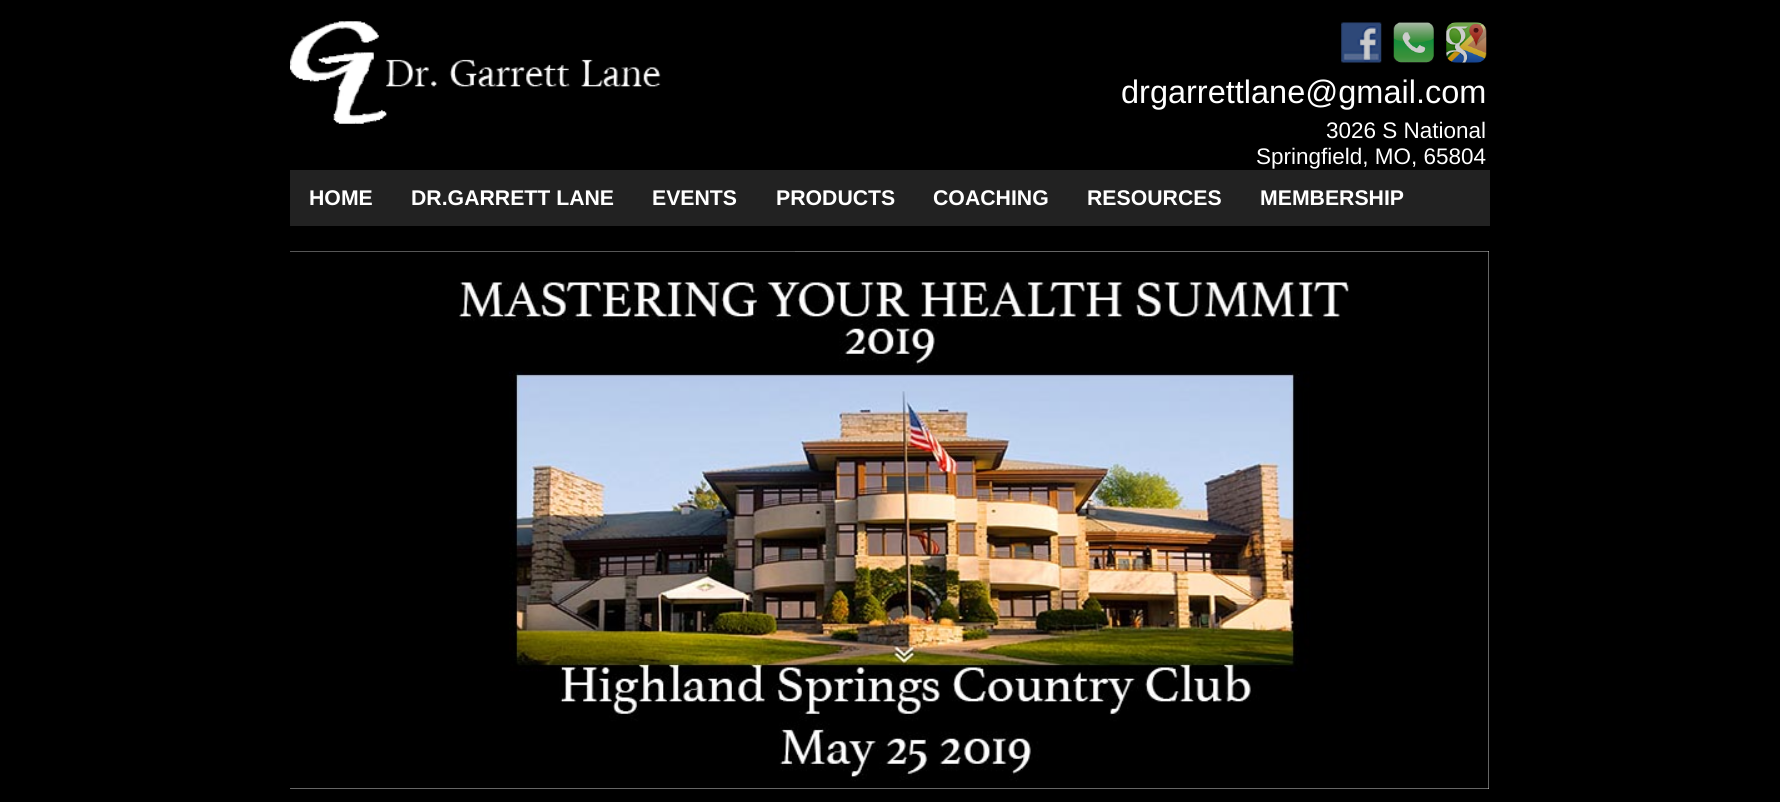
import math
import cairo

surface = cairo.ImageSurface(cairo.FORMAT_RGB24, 1780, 802)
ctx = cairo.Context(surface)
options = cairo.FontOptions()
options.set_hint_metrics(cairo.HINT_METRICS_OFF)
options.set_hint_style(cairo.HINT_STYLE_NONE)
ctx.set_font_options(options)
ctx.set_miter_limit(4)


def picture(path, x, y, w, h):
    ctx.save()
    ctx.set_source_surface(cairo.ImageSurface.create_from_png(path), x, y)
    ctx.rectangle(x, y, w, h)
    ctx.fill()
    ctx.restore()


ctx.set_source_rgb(0, 0, 0)
ctx.paint()
picture("img1.png", 290, 21, 371, 103)
picture("img2.png", 1341, 22, 41, 41)
picture("img3.png", 1393, 22, 41, 41)
picture("img4.png", 1446, 22, 41, 41)
ctx.select_font_face("Liberation Sans")
ctx.set_font_size(32.5)
ctx.set_source_rgb(1, 1, 1)
ctx.move_to(1121, 103)
ctx.show_text("drgarrettlane@gmail.com")
ctx.set_font_size(22.5)
ctx.move_to(1326, 138)
ctx.show_text("3026 S National")
ctx.move_to(1256, 164)
ctx.show_text("Springfield, MO, 65804")
ctx.set_source_rgb(0.133, 0.133, 0.133)
ctx.rectangle(290, 170, 1200, 56)
ctx.fill()
ctx.select_font_face("Liberation Sans", cairo.FONT_SLANT_NORMAL, cairo.FONT_WEIGHT_BOLD)
ctx.set_font_size(21.25)
ctx.set_source_rgb(1, 1, 1)
ctx.move_to(309, 205)
ctx.show_text("HOME")
ctx.move_to(411, 205)
ctx.show_text("DR.GARRETT LANE")
ctx.move_to(652, 205)
ctx.show_text("EVENTS")
ctx.move_to(776, 205)
ctx.show_text("PRODUCTS")
ctx.move_to(933, 205)
ctx.show_text("COACHING")
ctx.move_to(1087, 205)
ctx.show_text("RESOURCES")
ctx.move_to(1260, 205)
ctx.show_text("MEMBERSHIP")
ctx.set_source_rgb(0.914, 0.914, 0.914)
ctx.rectangle(290, 251, 1199, 538)
ctx.fill()
picture("img5.png", 290, 251, 1199, 538)
ctx.set_source_rgba(0, 0, 0, 0.15)
ctx.rectangle(290, 251, 505, 1)
ctx.fill()
surface.write_to_png("page.png")
